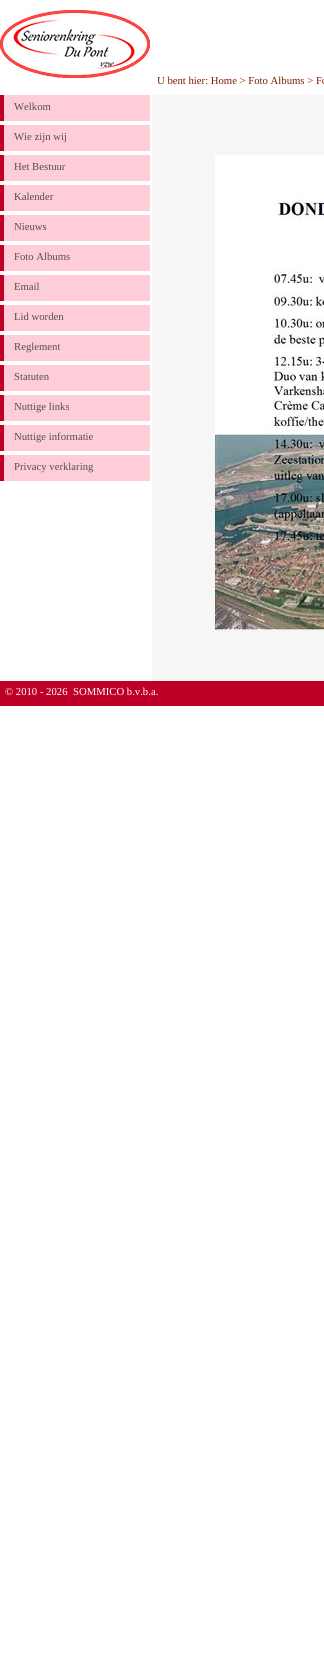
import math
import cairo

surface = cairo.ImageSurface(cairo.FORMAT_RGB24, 324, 1671)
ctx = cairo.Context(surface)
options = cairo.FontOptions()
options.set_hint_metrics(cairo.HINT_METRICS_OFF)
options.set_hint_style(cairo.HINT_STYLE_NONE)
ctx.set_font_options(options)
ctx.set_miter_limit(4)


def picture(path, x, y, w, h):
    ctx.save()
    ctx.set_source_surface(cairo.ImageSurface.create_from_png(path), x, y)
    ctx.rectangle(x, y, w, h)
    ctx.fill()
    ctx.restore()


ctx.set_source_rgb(1, 1, 1)
ctx.paint()
picture("img1.png", 0, 10, 150, 68)
ctx.select_font_face("Liberation Serif")
ctx.set_font_size(10.7)
ctx.set_source_rgb(0.49, 0.114, 0.008)
ctx.move_to(157, 84)
ctx.show_text("U bent hier: Home > Foto Albums > Fo")
ctx.set_source_rgb(1, 0.804, 0.843)
ctx.rectangle(4, 95, 146, 26)
ctx.fill()
ctx.set_source_rgb(0.749, 0, 0.149)
ctx.rectangle(0, 95, 4, 26)
ctx.fill()
ctx.set_source_rgb(0.314, 0.314, 0.314)
ctx.move_to(14, 110)
ctx.show_text("Welkom")
ctx.set_source_rgb(1, 0.804, 0.843)
ctx.rectangle(4, 125, 146, 26)
ctx.fill()
ctx.set_source_rgb(0.749, 0, 0.149)
ctx.rectangle(0, 125, 4, 26)
ctx.fill()
ctx.set_source_rgb(0.314, 0.314, 0.314)
ctx.move_to(14, 140)
ctx.show_text("Wie zijn wij")
ctx.set_source_rgb(1, 0.804, 0.843)
ctx.rectangle(4, 155, 146, 26)
ctx.fill()
ctx.set_source_rgb(0.749, 0, 0.149)
ctx.rectangle(0, 155, 4, 26)
ctx.fill()
ctx.set_source_rgb(0.314, 0.314, 0.314)
ctx.move_to(14, 170)
ctx.show_text("Het Bestuur")
ctx.set_source_rgb(1, 0.804, 0.843)
ctx.rectangle(4, 185, 146, 26)
ctx.fill()
ctx.set_source_rgb(0.749, 0, 0.149)
ctx.rectangle(0, 185, 4, 26)
ctx.fill()
ctx.set_source_rgb(0.314, 0.314, 0.314)
ctx.move_to(14, 200)
ctx.show_text("Kalender")
ctx.set_source_rgb(1, 0.804, 0.843)
ctx.rectangle(4, 215, 146, 26)
ctx.fill()
ctx.set_source_rgb(0.749, 0, 0.149)
ctx.rectangle(0, 215, 4, 26)
ctx.fill()
ctx.set_source_rgb(0.314, 0.314, 0.314)
ctx.move_to(14, 230)
ctx.show_text("Nieuws")
ctx.set_source_rgb(1, 0.804, 0.843)
ctx.rectangle(4, 245, 146, 26)
ctx.fill()
ctx.set_source_rgb(0.749, 0, 0.149)
ctx.rectangle(0, 245, 4, 26)
ctx.fill()
ctx.set_source_rgb(0.314, 0.314, 0.314)
ctx.move_to(14, 260)
ctx.show_text("Foto Albums")
ctx.set_source_rgb(1, 0.804, 0.843)
ctx.rectangle(4, 275, 146, 26)
ctx.fill()
ctx.set_source_rgb(0.749, 0, 0.149)
ctx.rectangle(0, 275, 4, 26)
ctx.fill()
ctx.set_source_rgb(0.314, 0.314, 0.314)
ctx.move_to(14, 290)
ctx.show_text("Email")
ctx.set_source_rgb(1, 0.804, 0.843)
ctx.rectangle(4, 305, 146, 26)
ctx.fill()
ctx.set_source_rgb(0.749, 0, 0.149)
ctx.rectangle(0, 305, 4, 26)
ctx.fill()
ctx.set_source_rgb(0.314, 0.314, 0.314)
ctx.move_to(14, 320)
ctx.show_text("Lid worden")
ctx.set_source_rgb(1, 0.804, 0.843)
ctx.rectangle(4, 335, 146, 26)
ctx.fill()
ctx.set_source_rgb(0.749, 0, 0.149)
ctx.rectangle(0, 335, 4, 26)
ctx.fill()
ctx.set_source_rgb(0.314, 0.314, 0.314)
ctx.move_to(14, 350)
ctx.show_text("Reglement")
ctx.set_source_rgb(1, 0.804, 0.843)
ctx.rectangle(4, 365, 146, 26)
ctx.fill()
ctx.set_source_rgb(0.749, 0, 0.149)
ctx.rectangle(0, 365, 4, 26)
ctx.fill()
ctx.set_source_rgb(0.314, 0.314, 0.314)
ctx.move_to(14, 380)
ctx.show_text("Statuten")
ctx.set_source_rgb(1, 0.804, 0.843)
ctx.rectangle(4, 395, 146, 26)
ctx.fill()
ctx.set_source_rgb(0.749, 0, 0.149)
ctx.rectangle(0, 395, 4, 26)
ctx.fill()
ctx.set_source_rgb(0.314, 0.314, 0.314)
ctx.move_to(14, 410)
ctx.show_text("Nuttige links")
ctx.set_source_rgb(1, 0.804, 0.843)
ctx.rectangle(4, 425, 146, 26)
ctx.fill()
ctx.set_source_rgb(0.749, 0, 0.149)
ctx.rectangle(0, 425, 4, 26)
ctx.fill()
ctx.set_source_rgb(0.314, 0.314, 0.314)
ctx.move_to(14, 440)
ctx.show_text("Nuttige informatie")
ctx.set_source_rgb(1, 0.804, 0.843)
ctx.rectangle(4, 455, 146, 26)
ctx.fill()
ctx.set_source_rgb(0.749, 0, 0.149)
ctx.rectangle(0, 455, 4, 26)
ctx.fill()
ctx.set_source_rgb(0.314, 0.314, 0.314)
ctx.move_to(14, 470)
ctx.show_text("Privacy verklaring")
ctx.set_source_rgb(0.961, 0.961, 0.961)
ctx.rectangle(152, 95, 172, 586)
ctx.fill()
picture("img2.png", 215, 155, 109, 475)
ctx.set_source_rgb(0.749, 0, 0.149)
ctx.rectangle(0, 681, 324, 25)
ctx.fill()
ctx.set_source_rgb(1, 1, 1)
ctx.move_to(5, 695)
ctx.show_text("© 2010 - 2026")
ctx.move_to(73, 695)
ctx.show_text("SOMMICO b.v.b.a.")
surface.write_to_png("page.png")
